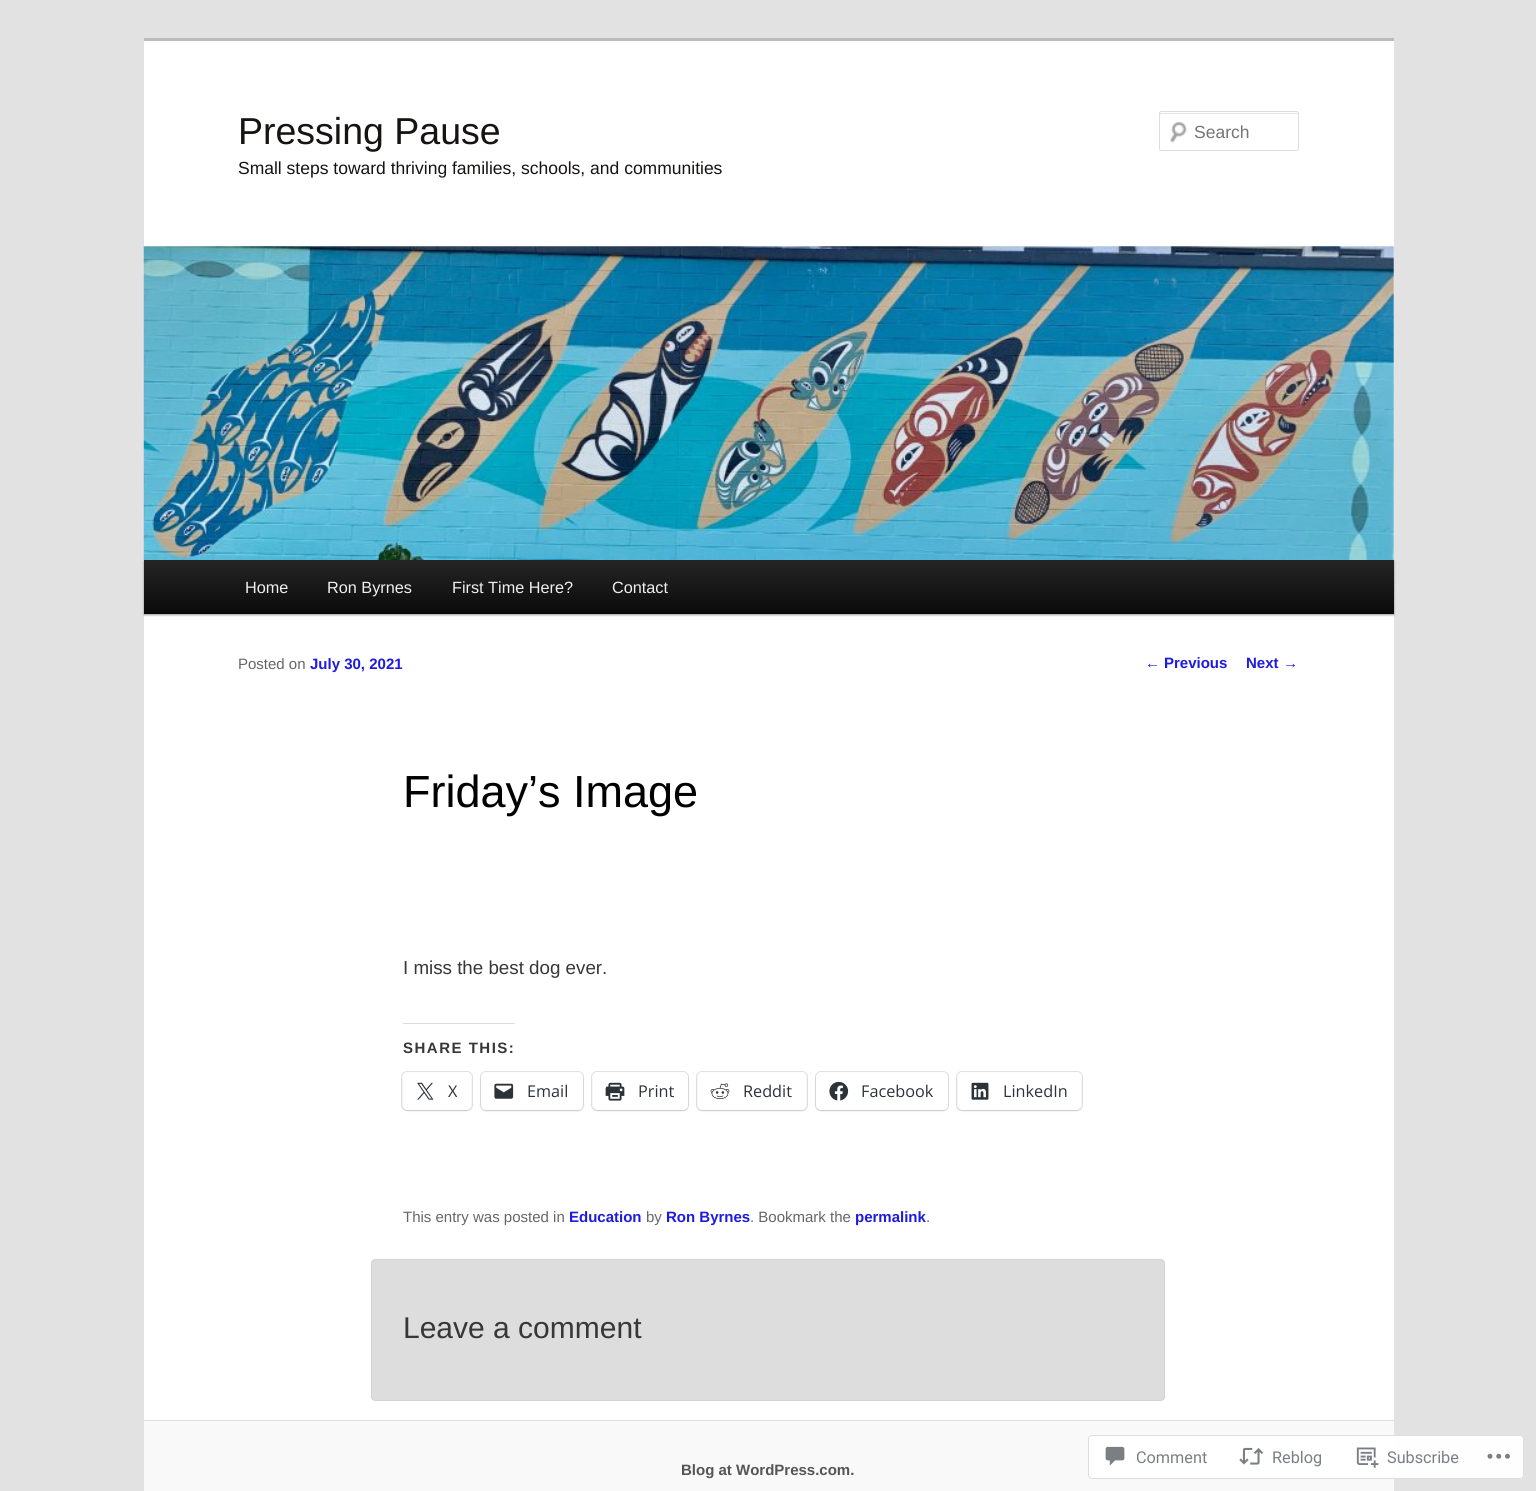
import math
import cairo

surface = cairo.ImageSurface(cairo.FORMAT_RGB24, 1536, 1491)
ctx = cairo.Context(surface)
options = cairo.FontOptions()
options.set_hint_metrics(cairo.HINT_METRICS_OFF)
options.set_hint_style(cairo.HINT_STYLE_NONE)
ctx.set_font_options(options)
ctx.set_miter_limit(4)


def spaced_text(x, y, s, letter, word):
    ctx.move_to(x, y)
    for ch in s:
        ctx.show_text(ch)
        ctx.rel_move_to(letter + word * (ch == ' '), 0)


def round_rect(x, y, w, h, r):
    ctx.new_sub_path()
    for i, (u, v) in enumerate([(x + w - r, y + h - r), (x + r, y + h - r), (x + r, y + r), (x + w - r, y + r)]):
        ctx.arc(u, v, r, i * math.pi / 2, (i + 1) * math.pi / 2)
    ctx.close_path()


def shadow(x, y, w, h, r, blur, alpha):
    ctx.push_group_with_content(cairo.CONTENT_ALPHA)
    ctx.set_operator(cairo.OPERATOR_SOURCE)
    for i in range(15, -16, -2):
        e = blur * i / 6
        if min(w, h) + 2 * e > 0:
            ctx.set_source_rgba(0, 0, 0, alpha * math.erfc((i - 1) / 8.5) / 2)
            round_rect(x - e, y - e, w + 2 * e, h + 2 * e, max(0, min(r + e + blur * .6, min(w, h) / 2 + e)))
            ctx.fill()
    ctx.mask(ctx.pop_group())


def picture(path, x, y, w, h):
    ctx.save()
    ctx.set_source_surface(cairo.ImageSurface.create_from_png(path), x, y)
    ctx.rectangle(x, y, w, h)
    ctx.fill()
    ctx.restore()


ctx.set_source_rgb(0.886, 0.886, 0.886)
ctx.paint()
ctx.set_source_rgb(1, 1, 1)
ctx.rectangle(144, 41, 1250, 1379)
ctx.fill()
ctx.set_source_rgb(0.733, 0.733, 0.733)
ctx.rectangle(144, 38, 1250, 3)
ctx.fill()
ctx.select_font_face("Arimo")
ctx.set_font_size(37.5)
ctx.set_source_rgb(0.09, 0.075, 0.075)
ctx.move_to(238, 144)
ctx.show_text("Pressing Pause")
ctx.set_font_size(17.5)
ctx.move_to(238, 174)
ctx.show_text("Small steps toward thriving families, schools, and communities")
picture("img1.png", 1170, 121, 17, 22)
ctx.set_source_rgb(0.902, 0.902, 0.902)
ctx.new_path()
ctx.move_to(1161, 114)
ctx.line_to(1296, 114)
ctx.curve_to(1297, 114, 1298, 114, 1298, 115)
ctx.curve_to(1298, 114, 1298, 113, 1297, 113)
ctx.line_to(1161, 113)
ctx.curve_to(1160, 113, 1160, 114, 1160, 115)
ctx.close_path()
ctx.fill()
round_rect(1159.5, 111.5, 139, 39, 2)
ctx.set_source_rgb(0.867, 0.867, 0.867)
ctx.set_line_width(1)
ctx.stroke()
ctx.set_source_rgb(0.459, 0.459, 0.459)
ctx.move_to(1194, 138)
ctx.show_text("Search")
ctx.set_source_rgb(0, 0, 0)
shadow(144, 561, 1250, 54, 0, 1, 0.4)
picture("img2.png", 143, 246, 1251, 314)
gradient = cairo.LinearGradient(769, 560, 769, 614)
gradient.add_color_stop_rgba(0, 0.145, 0.145, 0.145, 1)
gradient.add_color_stop_rgba(1, 0.039, 0.039, 0.039, 1)
ctx.set_source(gradient)
ctx.rectangle(144, 560, 1250, 54)
ctx.fill()
ctx.set_font_size(16.25)
ctx.set_source_rgb(0.933, 0.933, 0.933)
ctx.move_to(245, 593)
ctx.show_text("Home")
ctx.move_to(327, 593)
ctx.show_text("Ron Byrnes")
ctx.move_to(452, 593)
ctx.show_text("First Time Here?")
ctx.move_to(612, 593)
ctx.show_text("Contact")
ctx.set_font_size(15)
ctx.set_source_rgb(0.4, 0.4, 0.4)
ctx.move_to(238, 669)
ctx.show_text("Posted on")
ctx.select_font_face("Arimo", cairo.FONT_SLANT_NORMAL, cairo.FONT_WEIGHT_BOLD)
ctx.set_source_rgb(0.114, 0.106, 0.878)
ctx.move_to(310, 669)
ctx.show_text("July 30, 2021")
ctx.select_font_face("Arimo")
ctx.set_font_size(45)
ctx.set_source_rgb(0, 0, 0)
ctx.move_to(403, 807)
ctx.show_text("Friday’s Image")
ctx.set_font_size(18.75)
ctx.set_source_rgb(0.216, 0.216, 0.216)
ctx.move_to(403, 974)
ctx.show_text("I miss the best dog ever.")
ctx.set_source_rgb(0.863, 0.863, 0.871)
ctx.rectangle(403, 1023, 112, 1)
ctx.fill()
ctx.select_font_face("Arimo", cairo.FONT_SLANT_NORMAL, cairo.FONT_WEIGHT_BOLD)
ctx.set_font_size(15)
ctx.set_source_rgb(0.216, 0.216, 0.216)
spaced_text(403, 1053, "SHARE THIS:", 1.5, 0)
round_rect(401.5, 1071.5, 71, 39, 5.5)
ctx.set_source_rgb(0.878, 0.878, 0.878)
ctx.stroke()
ctx.set_source_rgb(0, 0, 0)
shadow(403, 1074, 68, 37, 5, 1, 0.12)
ctx.set_source_rgb(1, 1, 1)
round_rect(403, 1073, 68, 37, 5)
ctx.fill()
picture("img3.png", 417, 1082, 17, 18)
ctx.select_font_face("Open Sans")
ctx.set_font_size(16.25)
ctx.set_source_rgb(0.173, 0.2, 0.22)
ctx.move_to(448, 1097)
ctx.show_text("X")
round_rect(480.5, 1071.5, 103, 39, 5.5)
ctx.set_source_rgb(0.878, 0.878, 0.878)
ctx.stroke()
ctx.set_source_rgb(0, 0, 0)
shadow(481, 1074, 102, 37, 5, 1, 0.12)
ctx.set_source_rgb(1, 1, 1)
round_rect(481, 1073, 102, 37, 5)
ctx.fill()
picture("img4.png", 494, 1083, 20, 16)
ctx.set_source_rgb(0.173, 0.2, 0.22)
ctx.move_to(527, 1097)
ctx.show_text("Email")
round_rect(591.5, 1071.5, 97, 39, 5.5)
ctx.set_source_rgb(0.878, 0.878, 0.878)
ctx.stroke()
ctx.set_source_rgb(0, 0, 0)
shadow(593, 1074, 95, 37, 5, 1, 0.12)
ctx.set_source_rgb(1, 1, 1)
round_rect(593, 1073, 95, 37, 5)
ctx.fill()
picture("img5.png", 605, 1082, 20, 19)
ctx.set_source_rgb(0.173, 0.2, 0.22)
ctx.move_to(638, 1097)
ctx.show_text("Print")
round_rect(696.5, 1071.5, 111, 39, 5.5)
ctx.set_source_rgb(0.878, 0.878, 0.878)
ctx.stroke()
ctx.set_source_rgb(0, 0, 0)
shadow(698, 1074, 108, 37, 5, 1, 0.12)
ctx.set_source_rgb(1, 1, 1)
round_rect(698, 1073, 108, 37, 5)
ctx.fill()
picture("img6.png", 710, 1083, 20, 17)
ctx.set_source_rgb(0.173, 0.2, 0.22)
ctx.move_to(743, 1097)
ctx.show_text("Reddit")
round_rect(815.5, 1071.5, 133, 39, 5.5)
ctx.set_source_rgb(0.878, 0.878, 0.878)
ctx.stroke()
ctx.set_source_rgb(0, 0, 0)
shadow(816, 1074, 132, 37, 5, 1, 0.12)
ctx.set_source_rgb(1, 1, 1)
round_rect(816, 1073, 132, 37, 5)
ctx.fill()
picture("img7.png", 829, 1081, 20, 20)
ctx.set_source_rgb(0.173, 0.2, 0.22)
ctx.move_to(861, 1097)
ctx.show_text("Facebook")
round_rect(956.5, 1071.5, 126, 39, 5.5)
ctx.set_source_rgb(0.878, 0.878, 0.878)
ctx.stroke()
ctx.set_source_rgb(0, 0, 0)
shadow(958, 1074, 123, 37, 5, 1, 0.12)
ctx.set_source_rgb(1, 1, 1)
round_rect(958, 1073, 123, 37, 5)
ctx.fill()
picture("img8.png", 971, 1082, 18, 18)
ctx.set_source_rgb(0.173, 0.2, 0.22)
ctx.move_to(1003, 1097)
ctx.show_text("LinkedIn")
ctx.select_font_face("Arimo")
ctx.set_font_size(15)
ctx.set_source_rgb(0.4, 0.4, 0.4)
ctx.move_to(403, 1222)
ctx.show_text("This entry was posted in")
ctx.select_font_face("Arimo", cairo.FONT_SLANT_NORMAL, cairo.FONT_WEIGHT_BOLD)
ctx.set_source_rgb(0.114, 0.106, 0.878)
ctx.move_to(569, 1222)
ctx.show_text("Education")
ctx.select_font_face("Arimo")
ctx.set_source_rgb(0.4, 0.4, 0.4)
ctx.move_to(646, 1222)
ctx.show_text("by")
ctx.select_font_face("Arimo", cairo.FONT_SLANT_NORMAL, cairo.FONT_WEIGHT_BOLD)
ctx.set_source_rgb(0.114, 0.106, 0.878)
ctx.move_to(666, 1222)
ctx.show_text("Ron Byrnes")
ctx.select_font_face("Arimo")
ctx.set_source_rgb(0.4, 0.4, 0.4)
ctx.move_to(750, 1222)
ctx.show_text(". Bookmark the")
ctx.select_font_face("Arimo", cairo.FONT_SLANT_NORMAL, cairo.FONT_WEIGHT_BOLD)
ctx.set_source_rgb(0.114, 0.106, 0.878)
ctx.move_to(855, 1222)
ctx.show_text("permalink")
ctx.select_font_face("Arimo")
ctx.set_source_rgb(0.4, 0.4, 0.4)
ctx.move_to(926, 1222)
ctx.show_text(".")
ctx.select_font_face("Liberation Sans")
ctx.set_source_rgb(0.114, 0.106, 0.878)
ctx.move_to(1145, 668)
ctx.show_text("←")
ctx.select_font_face("Arimo", cairo.FONT_SLANT_NORMAL, cairo.FONT_WEIGHT_BOLD)
ctx.move_to(1164, 668)
ctx.show_text("Previous")
ctx.move_to(1246, 668)
ctx.show_text("Next")
ctx.select_font_face("Liberation Sans")
ctx.move_to(1283, 668)
ctx.show_text("→")
ctx.set_source_rgb(0.867, 0.867, 0.867)
round_rect(371.5, 1259.5, 793, 141, 3.5)
ctx.fill_preserve()
ctx.set_source_rgb(0.827, 0.827, 0.827)
ctx.stroke()
ctx.select_font_face("Arimo")
ctx.set_font_size(30)
ctx.set_source_rgb(0.216, 0.216, 0.216)
ctx.move_to(403, 1338)
ctx.show_text("Leave a comment")
ctx.set_source_rgb(0.976, 0.976, 0.976)
ctx.rectangle(144, 1421, 1250, 70)
ctx.fill()
ctx.set_source_rgb(0.867, 0.867, 0.867)
ctx.rectangle(144, 1420, 1250, 1)
ctx.fill()
ctx.select_font_face("Arimo", cairo.FONT_SLANT_NORMAL, cairo.FONT_WEIGHT_BOLD)
ctx.set_font_size(15)
ctx.set_source_rgb(0.333, 0.333, 0.333)
ctx.move_to(681, 1475)
ctx.show_text("Blog at WordPress.com.")
ctx.set_source_rgba(1, 1, 1, 0.98)
round_rect(1088, 1435, 436, 44, 4)
ctx.fill()
round_rect(1088.5, 1435.5, 435, 43, 3.5)
ctx.set_source_rgba(0.863, 0.863, 0.871, 0.98)
ctx.stroke()
picture("img9.png", 1105, 1446, 20, 20)
ctx.select_font_face("Roboto")
ctx.set_font_size(16.25)
ctx.set_source_rgb(0.482, 0.498, 0.518)
ctx.move_to(1136, 1463)
ctx.show_text("Comment")
picture("img10.png", 1239, 1447, 25, 18)
ctx.move_to(1272, 1463)
ctx.show_text("Reblog")
picture("img11.png", 1356, 1447, 23, 21)
ctx.move_to(1387, 1463)
ctx.show_text("Subscribe")
picture("img12.png", 1487, 1453, 23, 6)
surface.write_to_png("page.png")
